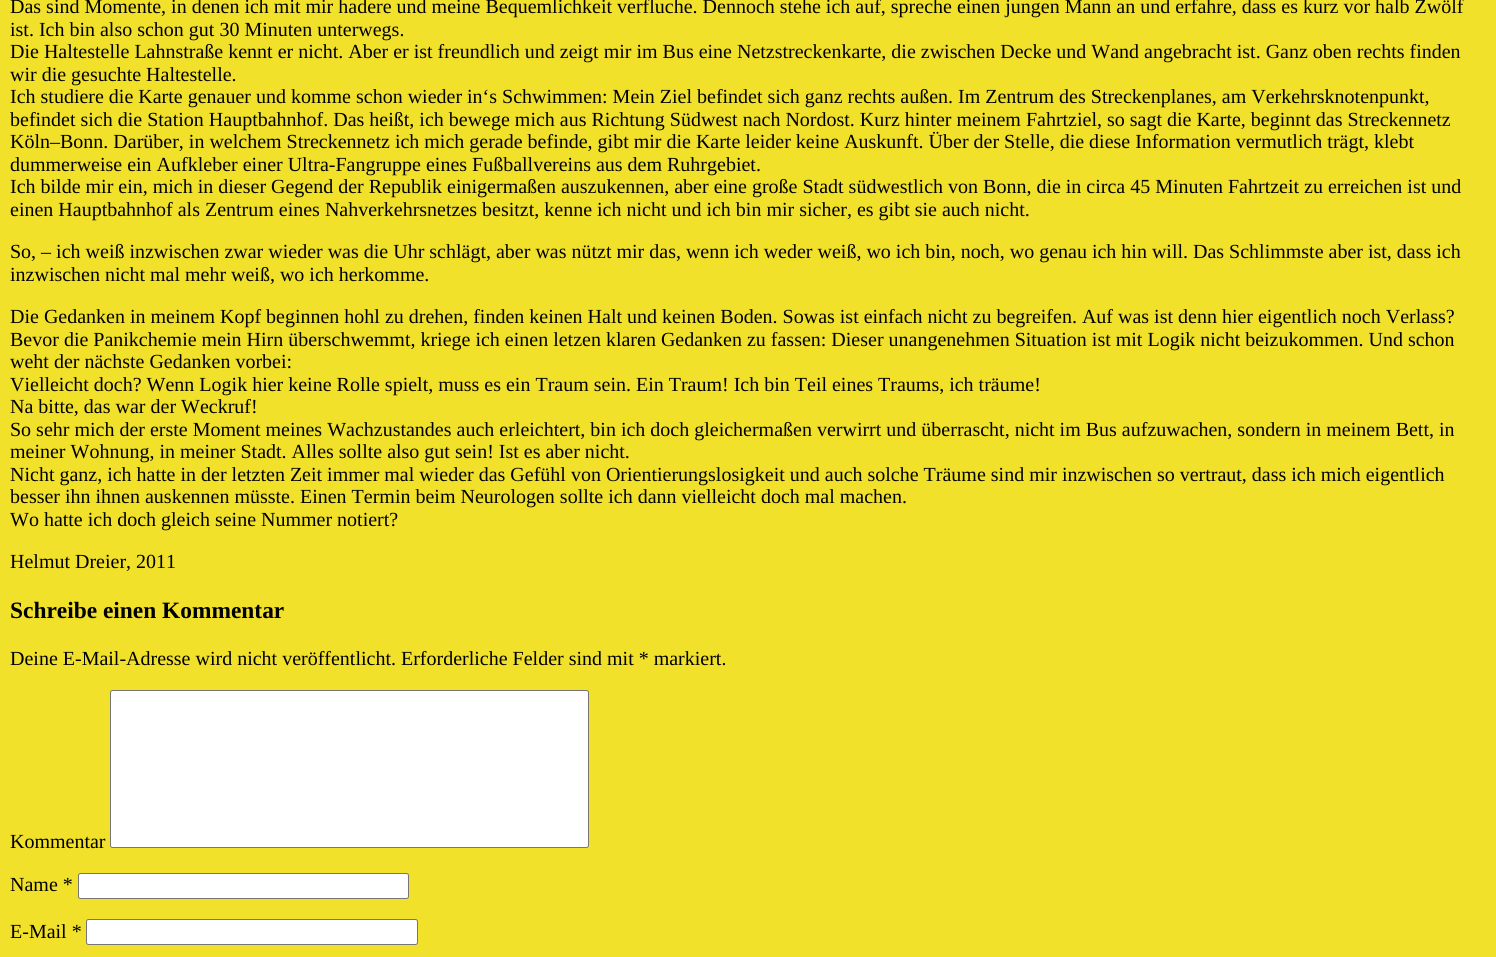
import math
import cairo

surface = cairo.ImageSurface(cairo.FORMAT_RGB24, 1496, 957)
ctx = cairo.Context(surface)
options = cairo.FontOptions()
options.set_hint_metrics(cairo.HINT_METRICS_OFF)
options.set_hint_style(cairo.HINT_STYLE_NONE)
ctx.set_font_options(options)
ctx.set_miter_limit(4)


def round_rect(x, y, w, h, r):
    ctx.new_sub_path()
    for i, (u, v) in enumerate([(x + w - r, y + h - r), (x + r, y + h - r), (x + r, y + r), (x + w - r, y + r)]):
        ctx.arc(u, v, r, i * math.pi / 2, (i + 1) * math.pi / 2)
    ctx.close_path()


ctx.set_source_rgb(0.949, 0.882, 0.169)
ctx.paint()
ctx.select_font_face("Liberation Serif")
ctx.set_font_size(20)
ctx.set_source_rgb(0, 0, 0)
ctx.move_to(10, 13)
ctx.show_text("Das sind Momente, in denen ich mit mir hadere und meine Bequemlichkeit verfluche. Dennoch stehe ich auf, spreche einen jungen Mann an und erfahre, dass es kurz vor halb Zwölf")
ctx.move_to(10, 36)
ctx.show_text("ist. Ich bin also schon gut 30 Minuten unterwegs.")
ctx.move_to(10, 58)
ctx.show_text("Die Haltestelle Lahnstraße kennt er nicht. Aber er ist freundlich und zeigt mir im Bus eine Netzstreckenkarte, die zwischen Decke und Wand angebracht ist. Ganz oben rechts finden")
ctx.move_to(10, 81)
ctx.show_text("wir die gesuchte Haltestelle.")
ctx.move_to(10, 103)
ctx.show_text("Ich studiere die Karte genauer und komme schon wieder in‘s Schwimmen: Mein Ziel befindet sich ganz rechts außen. Im Zentrum des Streckenplanes, am Verkehrsknotenpunkt,")
ctx.move_to(10, 126)
ctx.show_text("befindet sich die Station Hauptbahnhof. Das heißt, ich bewege mich aus Richtung Südwest nach Nordost. Kurz hinter meinem Fahrtziel, so sagt die Karte, beginnt das Streckennetz")
ctx.move_to(10, 148)
ctx.show_text("Köln–Bonn. Darüber, in welchem Streckennetz ich mich gerade befinde, gibt mir die Karte leider keine Auskunft. Über der Stelle, die diese Information vermutlich trägt, klebt")
ctx.move_to(10, 171)
ctx.show_text("dummerweise ein Aufkleber einer Ultra-Fangruppe eines Fußballvereins aus dem Ruhrgebiet.")
ctx.move_to(10, 193)
ctx.show_text("Ich bilde mir ein, mich in dieser Gegend der Republik einigermaßen auszukennen, aber eine große Stadt südwestlich von Bonn, die in circa 45 Minuten Fahrtzeit zu erreichen ist und")
ctx.move_to(10, 216)
ctx.show_text("einen Hauptbahnhof als Zentrum eines Nahverkehrsnetzes besitzt, kenne ich nicht und ich bin mir sicher, es gibt sie auch nicht.")
ctx.move_to(10, 258)
ctx.show_text("So, – ich weiß inzwischen zwar wieder was die Uhr schlägt, aber was nützt mir das, wenn ich weder weiß, wo ich bin, noch, wo genau ich hin will. Das Schlimmste aber ist, dass ich")
ctx.move_to(10, 281)
ctx.show_text("inzwischen nicht mal mehr weiß, wo ich herkomme.")
ctx.move_to(10, 323)
ctx.show_text("Die Gedanken in meinem Kopf beginnen hohl zu drehen, finden keinen Halt und keinen Boden. Sowas ist einfach nicht zu begreifen. Auf was ist denn hier eigentlich noch Verlass?")
ctx.move_to(10, 346)
ctx.show_text("Bevor die Panikchemie mein Hirn überschwemmt, kriege ich einen letzen klaren Gedanken zu fassen: Dieser unangenehmen Situation ist mit Logik nicht beizukommen. Und schon")
ctx.move_to(10, 368)
ctx.show_text("weht der nächste Gedanken vorbei:")
ctx.move_to(10, 391)
ctx.show_text("Vielleicht doch? Wenn Logik hier keine Rolle spielt, muss es ein Traum sein. Ein Traum! Ich bin Teil eines Traums, ich träume!")
ctx.move_to(10, 413)
ctx.show_text("Na bitte, das war der Weckruf!")
ctx.move_to(10, 436)
ctx.show_text("So sehr mich der erste Moment meines Wachzustandes auch erleichtert, bin ich doch gleichermaßen verwirrt und überrascht, nicht im Bus aufzuwachen, sondern in meinem Bett, in")
ctx.move_to(10, 458)
ctx.show_text("meiner Wohnung, in meiner Stadt. Alles sollte also gut sein! Ist es aber nicht.")
ctx.move_to(10, 481)
ctx.show_text("Nicht ganz, ich hatte in der letzten Zeit immer mal wieder das Gefühl von Orientierungslosigkeit und auch solche Träume sind mir inzwischen so vertraut, dass ich mich eigentlich")
ctx.move_to(10, 503)
ctx.show_text("besser ihn ihnen auskennen müsste. Einen Termin beim Neurologen sollte ich dann vielleicht doch mal machen.")
ctx.move_to(10, 526)
ctx.show_text("Wo hatte ich doch gleich seine Nummer notiert?")
ctx.move_to(10, 568)
ctx.show_text("Helmut Dreier, 2011")
ctx.select_font_face("Liberation Serif", cairo.FONT_SLANT_NORMAL, cairo.FONT_WEIGHT_BOLD)
ctx.set_font_size(23.4)
ctx.move_to(10, 618)
ctx.show_text("Schreibe einen Kommentar")
ctx.select_font_face("Liberation Serif")
ctx.set_font_size(20)
ctx.move_to(10, 665)
ctx.show_text("Deine E-Mail-Adresse wird nicht veröffentlicht. Erforderliche Felder sind mit * markiert.")
ctx.move_to(10, 848)
ctx.show_text("Kommentar")
ctx.set_source_rgb(1, 1, 1)
round_rect(110.5, 690.5, 478, 157, 2)
ctx.fill_preserve()
ctx.set_source_rgb(0.463, 0.463, 0.463)
ctx.set_line_width(1)
ctx.stroke()
ctx.set_source_rgb(0, 0, 0)
ctx.move_to(10, 891)
ctx.show_text("Name *")
ctx.set_source_rgb(1, 1, 1)
round_rect(78.5, 873.5, 330, 25, 2)
ctx.fill_preserve()
ctx.set_source_rgb(0.463, 0.463, 0.463)
ctx.stroke()
ctx.set_source_rgb(0, 0, 0)
ctx.move_to(10, 938)
ctx.show_text("E-Mail *")
ctx.set_source_rgb(1, 1, 1)
round_rect(86.5, 919.5, 331, 25, 2)
ctx.fill_preserve()
ctx.set_source_rgb(0.463, 0.463, 0.463)
ctx.stroke()
surface.write_to_png("page.png")
